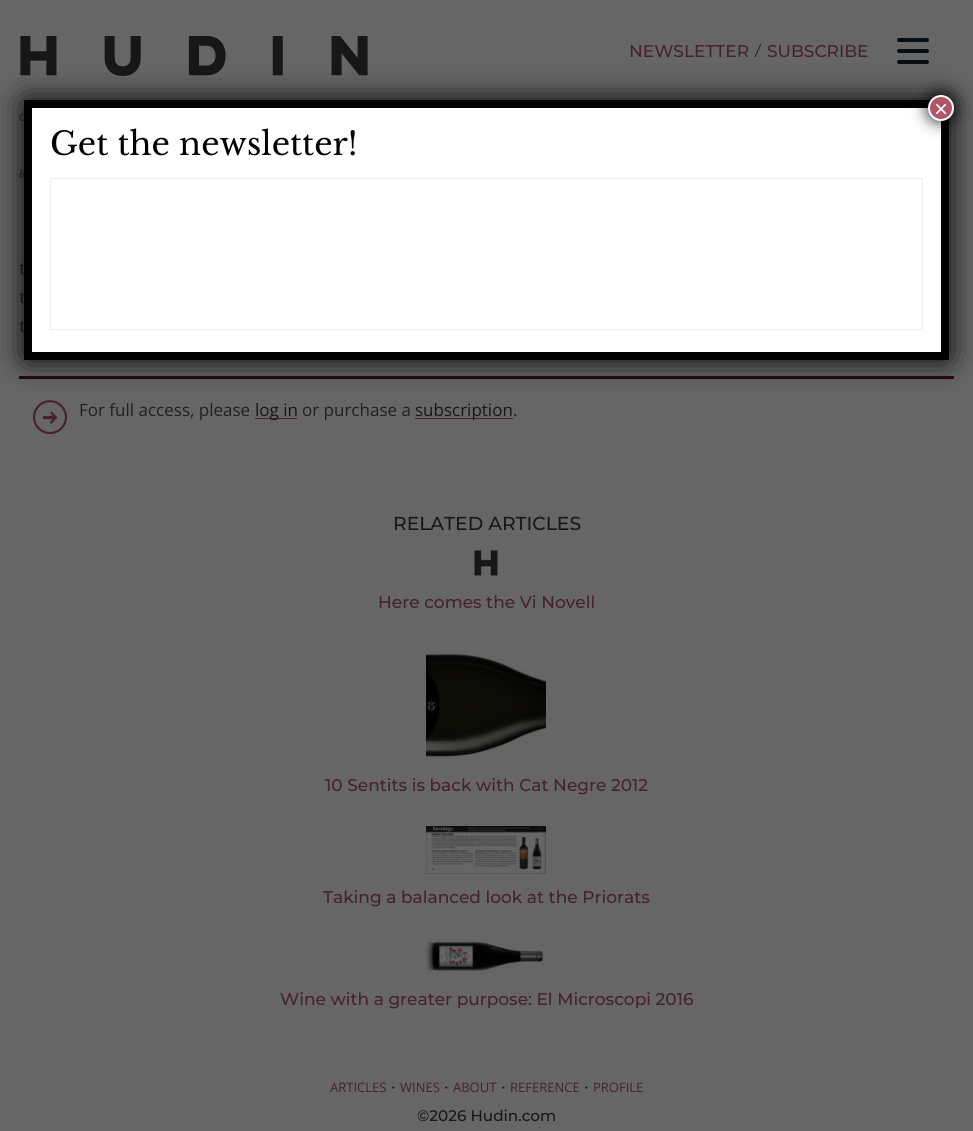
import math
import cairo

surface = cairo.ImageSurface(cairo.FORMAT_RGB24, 973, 1131)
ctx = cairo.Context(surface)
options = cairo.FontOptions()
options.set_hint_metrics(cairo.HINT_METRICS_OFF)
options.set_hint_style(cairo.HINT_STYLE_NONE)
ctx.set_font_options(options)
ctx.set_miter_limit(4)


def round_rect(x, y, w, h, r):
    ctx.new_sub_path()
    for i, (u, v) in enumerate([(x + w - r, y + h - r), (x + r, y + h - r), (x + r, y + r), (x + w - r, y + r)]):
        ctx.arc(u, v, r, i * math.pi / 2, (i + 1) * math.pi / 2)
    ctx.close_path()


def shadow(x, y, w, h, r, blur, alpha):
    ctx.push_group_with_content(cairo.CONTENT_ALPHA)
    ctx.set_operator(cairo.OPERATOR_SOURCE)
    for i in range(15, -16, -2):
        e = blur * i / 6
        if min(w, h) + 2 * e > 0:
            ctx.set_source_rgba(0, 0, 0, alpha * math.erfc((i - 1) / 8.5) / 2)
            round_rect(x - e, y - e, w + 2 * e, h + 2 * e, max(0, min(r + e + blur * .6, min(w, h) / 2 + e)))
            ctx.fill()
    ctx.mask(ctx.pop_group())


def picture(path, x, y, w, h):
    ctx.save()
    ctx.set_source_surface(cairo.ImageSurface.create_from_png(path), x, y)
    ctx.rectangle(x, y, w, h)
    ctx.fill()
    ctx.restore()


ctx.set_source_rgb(0.4, 0.4, 0.4)
ctx.paint()
picture("img1.png", 20, 36, 348, 40)
ctx.select_font_face("Montserrat Thin")
ctx.set_font_size(17)
ctx.set_source_rgb(0.275, 0.133, 0.165)
ctx.move_to(629, 57)
ctx.show_text("NEWSLETTER")
ctx.select_font_face("Libre Baskerville")
ctx.set_source_rgb(0.09, 0.09, 0.09)
ctx.move_to(754, 57)
ctx.show_text("/")
ctx.select_font_face("Montserrat Thin")
ctx.set_source_rgb(0.275, 0.133, 0.165)
ctx.move_to(767, 57)
ctx.show_text("SUBSCRIBE")
ctx.set_source_rgb(0.024, 0.055, 0.078)
round_rect(897, 38, 32, 4, 2)
ctx.fill()
round_rect(897, 49, 32, 4, 2)
ctx.fill()
round_rect(897, 60, 32, 4, 2)
ctx.fill()
ctx.set_source_rgb(0.157, 0.039, 0.071)
ctx.rectangle(19, 376, 935, 3)
ctx.fill()
picture("img2.png", 33, 400, 34, 35)
ctx.set_source_rgb(0.008, 0.008, 0.008)
shadow(24, 100, 925, 260, 3, 15, 1)
ctx.set_source_rgb(1, 1, 1)
ctx.rectangle(32, 108, 909, 244)
ctx.fill()
ctx.select_font_face("Open Sans")
ctx.set_font_size(10)
ctx.set_source_rgb(0.09, 0.09, 0.09)
ctx.move_to(19, 121)
ctx.show_text("C")
ctx.select_font_face("Libre Baskerville", cairo.FONT_SLANT_ITALIC)
ctx.move_to(19, 178)
ctx.show_text("b")
ctx.select_font_face("Libre Baskerville")
ctx.set_font_size(17)
ctx.move_to(19, 274)
ctx.show_text("t")
ctx.move_to(19, 303)
ctx.show_text("t")
ctx.move_to(19, 332)
ctx.show_text("t")
ctx.new_path()
ctx.move_to(28, 104)
ctx.line_to(945, 104)
ctx.line_to(945, 356)
ctx.line_to(28, 356)
ctx.close_path()
ctx.set_source_rgb(0, 0, 0)
ctx.set_line_width(8)
ctx.stroke()
ctx.set_source_rgb(0.008, 0.008, 0.008)
shadow(927, 94, 28, 28, 14, 7.5, 0.75)
ctx.set_source_rgb(0.69, 0.329, 0.408)
ctx.arc(941, 108, 12, 0, 2 * math.pi)
ctx.fill_preserve()
ctx.set_source_rgb(1, 1, 1)
ctx.set_line_width(2)
ctx.stroke()
ctx.select_font_face("Liberation Sans")
ctx.set_font_size(24)
ctx.move_to(934, 117)
ctx.show_text("×")
ctx.select_font_face("Libre Baskerville")
ctx.set_font_size(32)
ctx.set_source_rgb(0, 0, 0)
ctx.move_to(50, 155)
ctx.show_text("Get the newsletter!")
ctx.rectangle(50.5, 178.5, 872, 151)
ctx.set_source_rgb(0.933, 0.933, 0.933)
ctx.set_line_width(1)
ctx.stroke()
ctx.select_font_face("Open Sans")
ctx.set_font_size(17)
ctx.set_source_rgb(0.125, 0.125, 0.125)
ctx.move_to(79, 416)
ctx.show_text("For full access, please")
ctx.set_source_rgb(0.275, 0.133, 0.165)
ctx.rectangle(255, 418, 42, 1)
ctx.fill()
ctx.set_source_rgb(0.09, 0.09, 0.09)
ctx.move_to(255, 416)
ctx.show_text("log in")
ctx.set_source_rgb(0.125, 0.125, 0.125)
ctx.move_to(302, 416)
ctx.show_text("or purchase a")
ctx.set_source_rgb(0.275, 0.133, 0.165)
ctx.rectangle(415, 418, 98, 1)
ctx.fill()
ctx.set_source_rgb(0.09, 0.09, 0.09)
ctx.move_to(415, 416)
ctx.show_text("subscription")
ctx.set_source_rgb(0.125, 0.125, 0.125)
ctx.move_to(513, 416)
ctx.show_text(".")
ctx.select_font_face("Montserrat Thin")
ctx.set_font_size(18.75)
ctx.set_source_rgb(0.09, 0.09, 0.09)
ctx.move_to(393, 530)
ctx.show_text("RELATED ARTICLES")
picture("img3.png", 474, 550, 24, 26)
ctx.set_font_size(17)
ctx.set_source_rgb(0.275, 0.133, 0.165)
ctx.move_to(378, 608)
ctx.show_text("Here comes the Vi Novell")
picture("img4.png", 426, 652, 120, 110)
ctx.move_to(325, 791)
ctx.show_text("10 Sentits is back with Cat Negre 2012")
picture("img5.png", 426, 826, 120, 48)
ctx.move_to(323, 903)
ctx.show_text("Taking a balanced look at the Priorats")
picture("img6.png", 426, 937, 120, 37)
ctx.move_to(280, 1005)
ctx.show_text("Wine with a greater purpose: El Microscopi 2016")
ctx.select_font_face("Open Sans")
ctx.set_font_size(13)
ctx.move_to(330, 1092)
ctx.show_text("ARTICLES")
ctx.select_font_face("Libre Baskerville")
ctx.set_font_size(16)
ctx.set_source_rgb(0.09, 0.09, 0.09)
ctx.move_to(391, 1092)
ctx.show_text("·")
ctx.select_font_face("Open Sans")
ctx.set_font_size(13)
ctx.set_source_rgb(0.275, 0.133, 0.165)
ctx.move_to(400, 1092)
ctx.show_text("WINES")
ctx.select_font_face("Libre Baskerville")
ctx.set_font_size(16)
ctx.set_source_rgb(0.09, 0.09, 0.09)
ctx.move_to(444, 1092)
ctx.show_text("·")
ctx.select_font_face("Open Sans")
ctx.set_font_size(13)
ctx.set_source_rgb(0.275, 0.133, 0.165)
ctx.move_to(453, 1092)
ctx.show_text("ABOUT")
ctx.select_font_face("Libre Baskerville")
ctx.set_font_size(16)
ctx.set_source_rgb(0.09, 0.09, 0.09)
ctx.move_to(501, 1092)
ctx.show_text("·")
ctx.select_font_face("Open Sans")
ctx.set_font_size(13)
ctx.set_source_rgb(0.275, 0.133, 0.165)
ctx.move_to(510, 1092)
ctx.show_text("REFERENCE")
ctx.select_font_face("Libre Baskerville")
ctx.set_font_size(16)
ctx.set_source_rgb(0.09, 0.09, 0.09)
ctx.move_to(584, 1092)
ctx.show_text("·")
ctx.select_font_face("Open Sans")
ctx.set_font_size(13)
ctx.set_source_rgb(0.275, 0.133, 0.165)
ctx.move_to(593, 1092)
ctx.show_text("PROFILE")
ctx.select_font_face("Montserrat Thin")
ctx.set_font_size(15.25)
ctx.set_source_rgb(0.09, 0.09, 0.09)
ctx.move_to(417, 1121)
ctx.show_text("©2026 Hudin.com")
surface.write_to_png("page.png")
